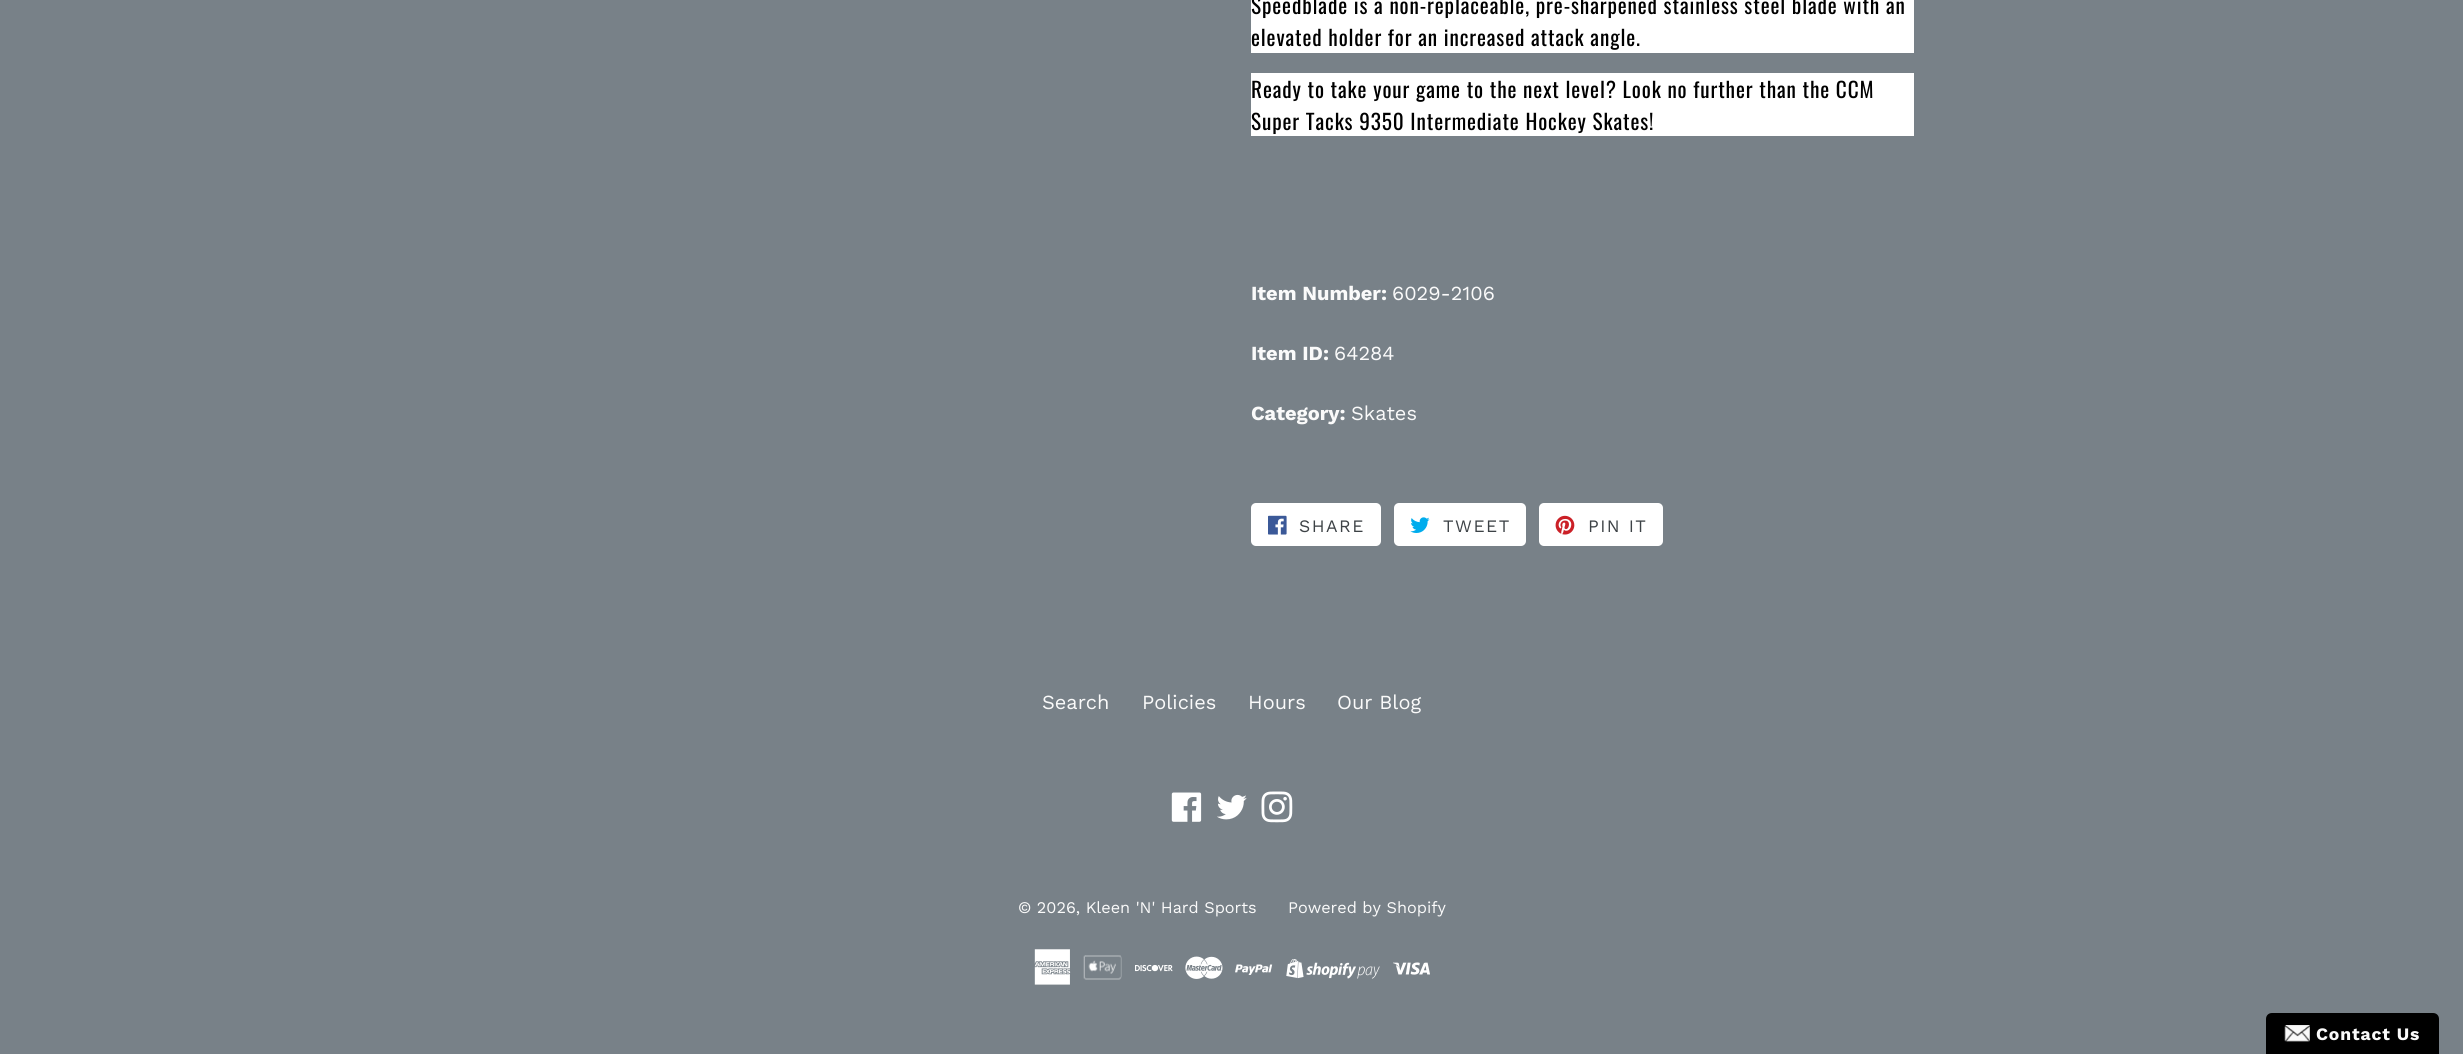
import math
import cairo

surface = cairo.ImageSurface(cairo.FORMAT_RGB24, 2463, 1054)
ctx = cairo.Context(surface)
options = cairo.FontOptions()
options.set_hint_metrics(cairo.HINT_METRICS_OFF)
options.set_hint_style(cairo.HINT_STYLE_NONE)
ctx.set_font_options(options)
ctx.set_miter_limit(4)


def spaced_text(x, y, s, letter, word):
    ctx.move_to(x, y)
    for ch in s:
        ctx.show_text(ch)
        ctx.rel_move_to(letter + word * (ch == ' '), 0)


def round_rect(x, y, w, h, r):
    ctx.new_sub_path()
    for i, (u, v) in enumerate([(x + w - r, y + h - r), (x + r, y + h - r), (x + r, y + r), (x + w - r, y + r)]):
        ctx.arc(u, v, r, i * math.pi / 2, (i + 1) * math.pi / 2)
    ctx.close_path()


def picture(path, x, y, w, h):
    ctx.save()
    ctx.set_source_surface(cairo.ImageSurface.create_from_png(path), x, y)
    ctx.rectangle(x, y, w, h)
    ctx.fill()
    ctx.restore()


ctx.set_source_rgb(0.471, 0.506, 0.533)
ctx.paint()
ctx.set_source_rgb(1, 1, 1)
ctx.rectangle(1251, 0, 663, 53)
ctx.fill()
ctx.select_font_face("Oswald")
ctx.set_font_size(21.25)
ctx.set_source_rgb(0, 0, 0)
spaced_text(1251, 14, "Speedblade is a non-replaceable, pre-sharpened stainless steel blade with an", 0.88, 0)
spaced_text(1251, 46, "elevated holder for an increased attack angle.", 0.88, 0)
ctx.set_source_rgb(1, 1, 1)
ctx.rectangle(1251, 73, 663, 63)
ctx.fill()
ctx.set_source_rgb(0, 0, 0)
spaced_text(1251, 98, "Ready to take your game to the next level? Look no further than the CCM", 0.88, 0)
spaced_text(1251, 130, "Super Tacks 9350 Intermediate Hockey Skates!", 0.88, 0)
ctx.select_font_face("Work Sans", cairo.FONT_SLANT_NORMAL, cairo.FONT_WEIGHT_BOLD)
ctx.set_font_size(20)
ctx.set_source_rgb(0.98, 0.98, 0.98)
ctx.move_to(1251, 300)
ctx.show_text("Item Number:")
ctx.select_font_face("Work Sans")
ctx.move_to(1392, 300)
ctx.show_text("6029-2106")
ctx.select_font_face("Work Sans", cairo.FONT_SLANT_NORMAL, cairo.FONT_WEIGHT_BOLD)
ctx.move_to(1251, 360)
ctx.show_text("Item ID:")
ctx.select_font_face("Work Sans")
ctx.move_to(1334, 360)
ctx.show_text("64284")
ctx.select_font_face("Work Sans", cairo.FONT_SLANT_NORMAL, cairo.FONT_WEIGHT_BOLD)
ctx.move_to(1251, 420)
ctx.show_text("Category:")
ctx.select_font_face("Work Sans")
ctx.move_to(1351, 420)
ctx.show_text("Skates")
ctx.set_source_rgb(1, 1, 1)
round_rect(1251, 503, 130, 43, 5)
ctx.fill()
picture("img1.png", 1268, 515, 19, 20)
ctx.set_font_size(17.5)
ctx.set_source_rgb(0.239, 0.259, 0.275)
spaced_text(1299, 532, "SHARE", 1.5, 0)
ctx.set_source_rgb(1, 1, 1)
round_rect(1394, 503, 132, 43, 5)
ctx.fill()
picture("img2.png", 1410, 517, 20, 16)
ctx.set_source_rgb(0.239, 0.259, 0.275)
spaced_text(1443, 532, "TWEET", 1.5, 0)
ctx.set_source_rgb(1, 1, 1)
round_rect(1539, 503, 124, 43, 5)
ctx.fill()
picture("img3.png", 1555, 515, 20, 20)
ctx.set_source_rgb(0.239, 0.259, 0.275)
spaced_text(1588, 532, "PIN IT", 1.5, 0)
ctx.set_font_size(20)
ctx.set_source_rgb(0.98, 0.98, 0.98)
ctx.move_to(1042, 709)
ctx.show_text("Search")
ctx.move_to(1142, 709)
ctx.show_text("Policies")
ctx.move_to(1248, 709)
ctx.show_text("Hours")
ctx.move_to(1337, 709)
ctx.show_text("Our Blog")
picture("img4.png", 1171, 792, 31, 30)
picture("img5.png", 1217, 794, 30, 26)
picture("img6.png", 1261, 791, 32, 32)
ctx.set_font_size(16.25)
ctx.move_to(1018, 913)
ctx.show_text("© 2026, Kleen 'N' Hard Sports")
ctx.move_to(1288, 913)
ctx.show_text("Powered by Shopify")
picture("img7.png", 1034, 949, 37, 36)
picture("img8.png", 1083, 955, 39, 25)
picture("img9.png", 1135, 964, 38, 8)
picture("img10.png", 1185, 956, 38, 23)
picture("img11.png", 1235, 964, 38, 11)
picture("img12.png", 1286, 959, 94, 20)
picture("img13.png", 1393, 962, 37, 13)
ctx.set_source_rgb(0, 0, 0)
ctx.new_path()
ctx.move_to(2272, 1013)
ctx.line_to(2433, 1013)
ctx.curve_to(2436.5, 1013, 2439, 1015.5, 2439, 1019)
ctx.line_to(2439, 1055)
ctx.line_to(2266, 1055)
ctx.line_to(2266, 1019)
ctx.curve_to(2266, 1015.5, 2268.5, 1013, 2272, 1013)
ctx.close_path()
ctx.fill()
picture("img14.png", 2284, 1025, 26, 17)
ctx.select_font_face("Work Sans", cairo.FONT_SLANT_NORMAL, cairo.FONT_WEIGHT_BOLD)
ctx.set_font_size(17.5)
ctx.set_source_rgb(0.98, 0.98, 0.98)
spaced_text(2316, 1040, "Contact Us", 0.88, 0)
surface.write_to_png("page.png")
